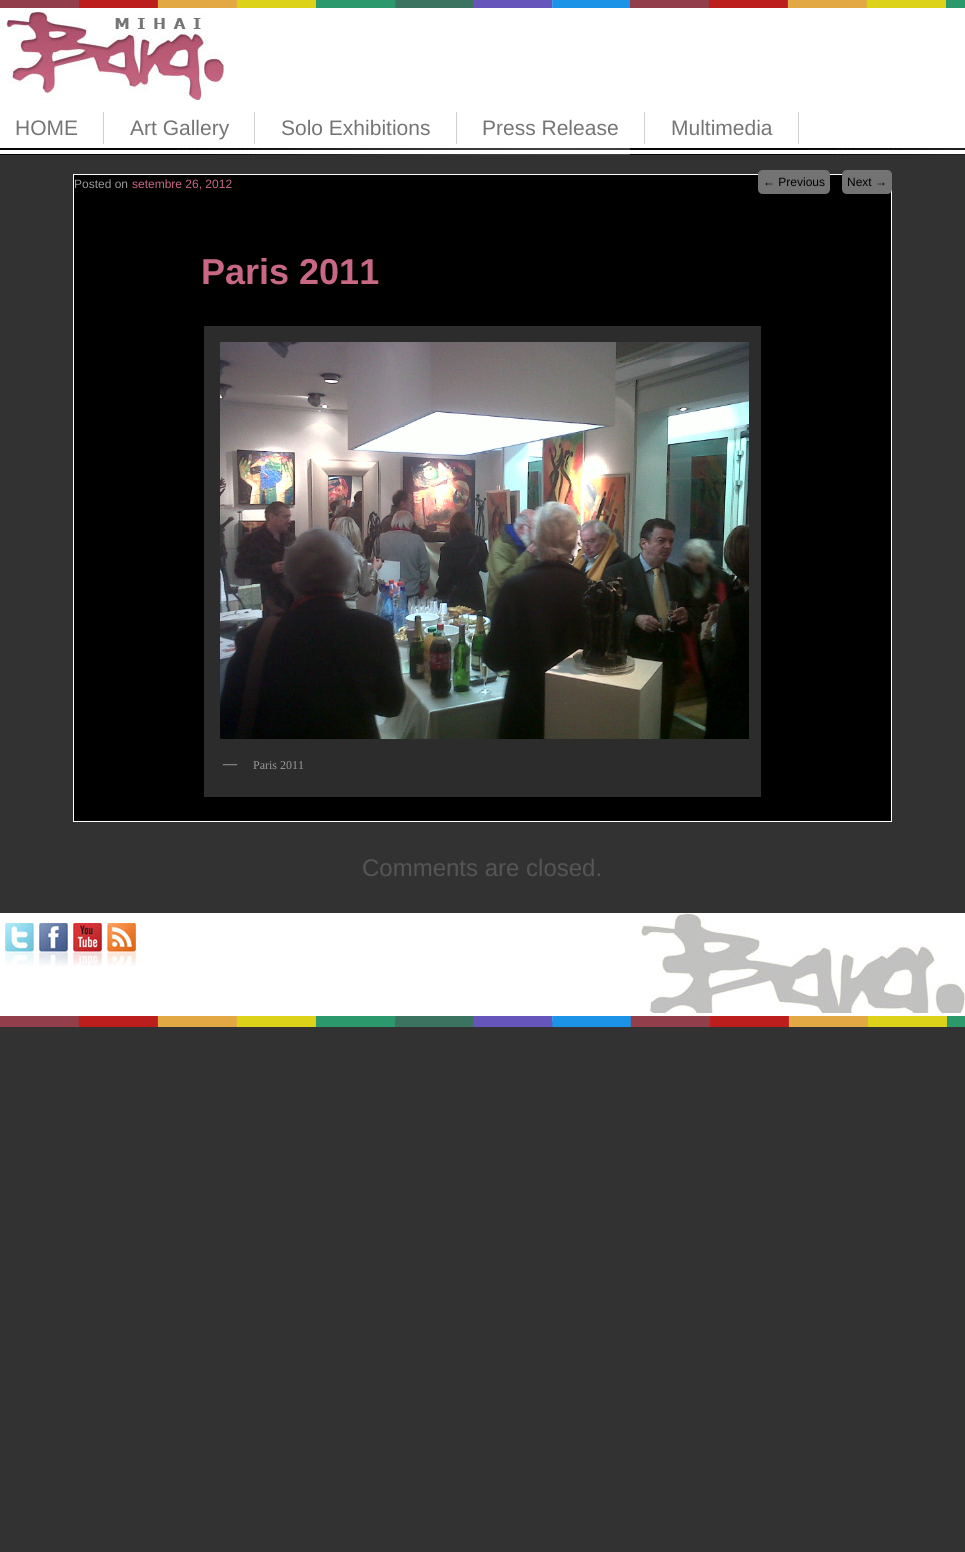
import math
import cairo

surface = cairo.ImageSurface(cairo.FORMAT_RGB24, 965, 1552)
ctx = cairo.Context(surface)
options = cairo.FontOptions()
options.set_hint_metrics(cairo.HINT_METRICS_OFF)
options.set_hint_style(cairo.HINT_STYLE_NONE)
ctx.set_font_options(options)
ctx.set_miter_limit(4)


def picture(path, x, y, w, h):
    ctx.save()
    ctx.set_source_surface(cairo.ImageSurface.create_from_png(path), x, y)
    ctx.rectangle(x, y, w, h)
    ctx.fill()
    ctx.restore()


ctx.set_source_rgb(0.196, 0.196, 0.196)
ctx.paint()
picture("img1.png", 0, 0, 965, 155)
picture("img2.png", 0, 12, 224, 88)
ctx.set_source_rgb(0.812, 0.812, 0.812)
ctx.rectangle(103, 112, 1, 32)
ctx.fill()
ctx.select_font_face("Liberation Sans")
ctx.set_font_size(21)
ctx.set_source_rgb(0.459, 0.459, 0.459)
ctx.move_to(15, 135)
ctx.show_text("HOME")
ctx.set_source_rgb(0.812, 0.812, 0.812)
ctx.rectangle(254, 112, 1, 32)
ctx.fill()
ctx.set_source_rgb(0.459, 0.459, 0.459)
ctx.move_to(130, 135)
ctx.show_text("Art Gallery")
ctx.set_source_rgb(0.812, 0.812, 0.812)
ctx.rectangle(456, 112, 1, 32)
ctx.fill()
ctx.set_source_rgb(0.459, 0.459, 0.459)
ctx.move_to(281, 135)
ctx.show_text("Solo Exhibitions")
ctx.set_source_rgb(0.812, 0.812, 0.812)
ctx.rectangle(644, 112, 1, 32)
ctx.fill()
ctx.set_source_rgb(0.459, 0.459, 0.459)
ctx.move_to(482, 135)
ctx.show_text("Press Release")
ctx.set_source_rgb(0.812, 0.812, 0.812)
ctx.rectangle(798, 112, 1, 32)
ctx.fill()
ctx.set_source_rgb(0.459, 0.459, 0.459)
ctx.move_to(671, 135)
ctx.show_text("Multimedia")
ctx.set_source_rgb(0, 0, 0)
ctx.rectangle(73.5, 174.5, 818, 647)
ctx.fill_preserve()
ctx.set_source_rgb(1, 1, 1)
ctx.set_line_width(1)
ctx.stroke()
ctx.set_font_size(12)
ctx.set_source_rgb(0.6, 0.6, 0.6)
ctx.move_to(74, 188)
ctx.show_text("Posted on")
ctx.set_source_rgb(0.784, 0.408, 0.518)
ctx.move_to(132, 188)
ctx.show_text("setembre 26, 2012")
ctx.select_font_face("Liberation Sans", cairo.FONT_SLANT_NORMAL, cairo.FONT_WEIGHT_BOLD)
ctx.set_font_size(36)
ctx.move_to(201, 284)
ctx.show_text("Paris 2011")
ctx.set_source_rgb(0.173, 0.173, 0.173)
ctx.rectangle(204, 326, 557, 471)
ctx.fill()
picture("img3.png", 220, 342, 529, 397)
ctx.select_font_face("Liberation Serif", cairo.FONT_SLANT_NORMAL, cairo.FONT_WEIGHT_BOLD)
ctx.set_font_size(14)
ctx.set_source_rgb(0.6, 0.6, 0.6)
ctx.move_to(223, 768)
ctx.show_text("—")
ctx.select_font_face("Liberation Serif")
ctx.set_font_size(12)
ctx.move_to(253, 769)
ctx.show_text("Paris 2011")
ctx.set_source_rgb(0.451, 0.451, 0.451)
ctx.new_path()
ctx.move_to(763, 170)
ctx.line_to(775, 170)
ctx.line_to(775, 194)
ctx.line_to(763, 194)
ctx.curve_to(760, 194, 758, 192, 758, 189)
ctx.line_to(758, 175)
ctx.curve_to(758, 172, 760, 170, 763, 170)
ctx.close_path()
ctx.fill()
ctx.new_path()
ctx.move_to(775, 170)
ctx.line_to(825, 170)
ctx.curve_to(828, 170, 830, 172, 830, 175)
ctx.line_to(830, 189)
ctx.curve_to(830, 192, 828, 194, 825, 194)
ctx.line_to(775, 194)
ctx.close_path()
ctx.fill()
ctx.select_font_face("Liberation Sans")
ctx.set_source_rgb(0, 0, 0)
ctx.move_to(763, 186)
ctx.show_text("← Previous")
ctx.set_source_rgb(0.451, 0.451, 0.451)
ctx.new_path()
ctx.move_to(847, 170)
ctx.line_to(875, 170)
ctx.line_to(875, 194)
ctx.line_to(847, 194)
ctx.curve_to(844, 194, 842, 192, 842, 189)
ctx.line_to(842, 175)
ctx.curve_to(842, 172, 844, 170, 847, 170)
ctx.close_path()
ctx.fill()
ctx.new_path()
ctx.move_to(875, 170)
ctx.line_to(887, 170)
ctx.curve_to(890, 170, 892, 172, 892, 175)
ctx.line_to(892, 189)
ctx.curve_to(892, 192, 890, 194, 887, 194)
ctx.line_to(875, 194)
ctx.close_path()
ctx.fill()
ctx.set_source_rgb(0, 0, 0)
ctx.move_to(847, 186)
ctx.show_text("Next →")
ctx.set_font_size(24)
ctx.set_source_rgb(0.333, 0.333, 0.333)
ctx.move_to(362, 876)
ctx.show_text("Comments are closed.")
picture("img4.png", 0, 913, 965, 114)
picture("img5.png", 5, 923, 29, 43)
picture("img6.png", 39, 923, 29, 43)
picture("img7.png", 73, 923, 29, 43)
picture("img8.png", 107, 923, 29, 43)
picture("img9.png", 641, 913, 324, 100)
surface.write_to_png("page.png")
